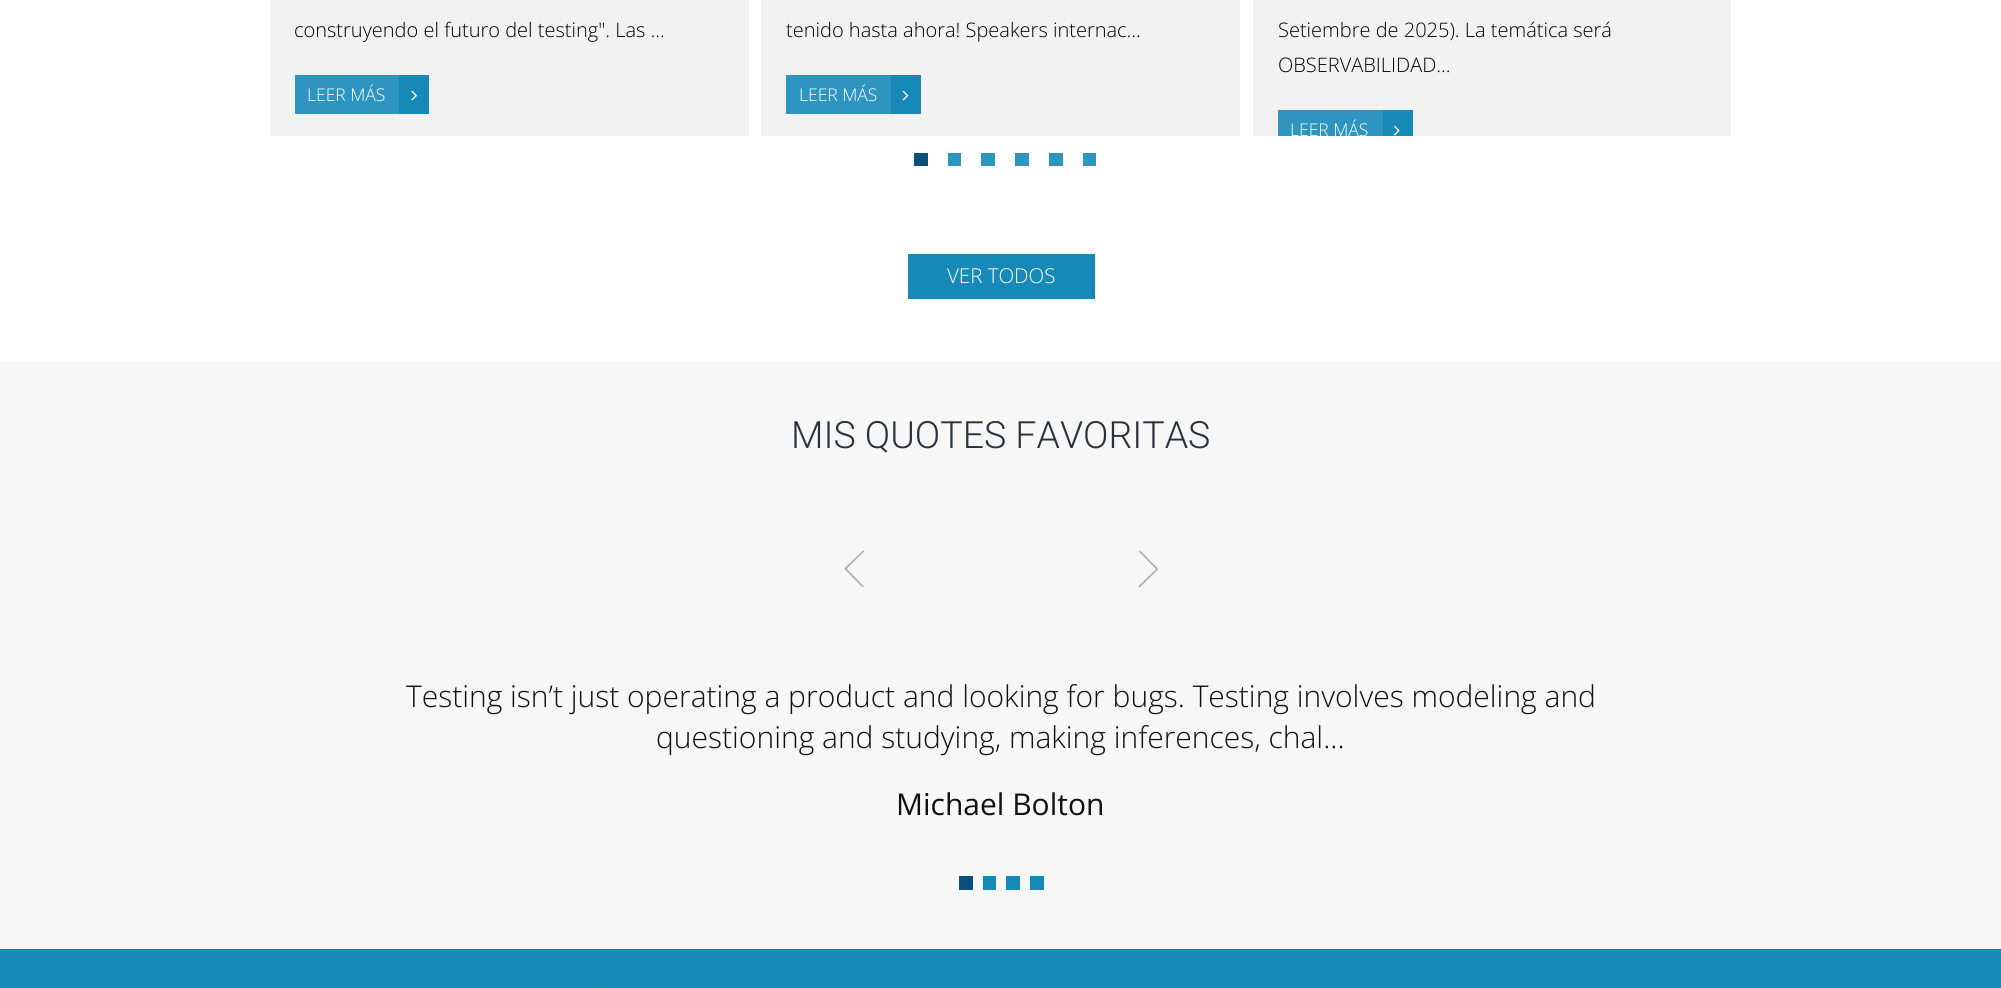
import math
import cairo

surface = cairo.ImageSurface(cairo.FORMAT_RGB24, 2001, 988)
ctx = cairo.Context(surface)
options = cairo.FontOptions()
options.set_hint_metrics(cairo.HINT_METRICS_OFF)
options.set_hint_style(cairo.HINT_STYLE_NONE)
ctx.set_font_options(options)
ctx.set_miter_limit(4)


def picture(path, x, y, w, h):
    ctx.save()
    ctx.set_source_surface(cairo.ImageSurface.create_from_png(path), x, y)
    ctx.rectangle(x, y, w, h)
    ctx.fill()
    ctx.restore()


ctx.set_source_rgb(1, 1, 1)
ctx.paint()
ctx.set_source_rgb(0.949, 0.949, 0.949)
ctx.rectangle(270, 0, 479, 136)
ctx.fill()
ctx.select_font_face("Open Sans Light")
ctx.set_font_size(20)
ctx.set_source_rgb(0, 0, 0)
ctx.move_to(294, 37)
ctx.show_text("construyendo el futuro del testing\". Las ...")
ctx.set_source_rgb(0.18, 0.584, 0.757)
ctx.rectangle(295, 75, 104, 39)
ctx.fill()
ctx.set_font_size(17.5)
ctx.set_source_rgb(1, 1, 1)
ctx.move_to(307, 101)
ctx.show_text("LEER MÁS")
ctx.set_source_rgb(0.086, 0.537, 0.725)
ctx.rectangle(399, 75, 30, 39)
ctx.fill()
picture("img1.png", 411, 90, 6, 11)
ctx.set_source_rgb(0.949, 0.949, 0.949)
ctx.rectangle(761, 0, 479, 136)
ctx.fill()
ctx.set_font_size(20)
ctx.set_source_rgb(0, 0, 0)
ctx.move_to(786, 37)
ctx.show_text("tenido hasta ahora! Speakers internac...")
ctx.set_source_rgb(0.18, 0.584, 0.757)
ctx.rectangle(786, 75, 105, 39)
ctx.fill()
ctx.set_font_size(17.5)
ctx.set_source_rgb(1, 1, 1)
ctx.move_to(799, 101)
ctx.show_text("LEER MÁS")
ctx.set_source_rgb(0.086, 0.537, 0.725)
ctx.rectangle(891, 75, 30, 39)
ctx.fill()
picture("img2.png", 902, 90, 7, 11)
ctx.set_source_rgb(0.949, 0.949, 0.949)
ctx.rectangle(1253, 0, 478, 136)
ctx.fill()
ctx.set_font_size(20)
ctx.set_source_rgb(0, 0, 0)
ctx.move_to(1278, 37)
ctx.show_text("Setiembre de 2025). La temática será")
ctx.move_to(1278, 72)
ctx.show_text("OBSERVABILIDAD...")
ctx.set_source_rgb(0.18, 0.584, 0.757)
ctx.rectangle(1278, 110, 105, 26)
ctx.fill()
ctx.save()
ctx.rectangle(270, 0, 1463, 136)
ctx.clip()
ctx.set_font_size(17.5)
ctx.set_source_rgb(1, 1, 1)
ctx.move_to(1290, 136)
ctx.show_text("LEER MÁS")
ctx.restore()
ctx.set_source_rgb(0.086, 0.537, 0.725)
ctx.rectangle(1383, 110, 30, 26)
ctx.fill()
picture("img3.png", 1393, 125, 7, 11)
ctx.set_source_rgb(0.039, 0.314, 0.486)
ctx.rectangle(914, 153, 14, 13)
ctx.fill()
ctx.set_source_rgb(0.18, 0.584, 0.757)
ctx.rectangle(948, 153, 13, 13)
ctx.fill()
ctx.rectangle(981, 153, 14, 13)
ctx.fill()
ctx.rectangle(1015, 153, 14, 13)
ctx.fill()
ctx.rectangle(1049, 153, 14, 13)
ctx.fill()
ctx.rectangle(1083, 153, 13, 13)
ctx.fill()
ctx.set_source_rgb(0.086, 0.537, 0.725)
ctx.rectangle(908, 254, 187, 45)
ctx.fill()
ctx.set_font_size(20.5)
ctx.set_source_rgb(1, 1, 1)
ctx.move_to(947, 283)
ctx.show_text("VER TODOS")
ctx.set_source_rgb(0.965, 0.965, 0.965)
ctx.rectangle(0, 361, 2001, 588)
ctx.fill()
ctx.select_font_face("Roboto Light")
ctx.set_font_size(37.5)
ctx.set_source_rgb(0.18, 0.192, 0.239)
ctx.move_to(791, 448)
ctx.show_text("MIS QUOTES FAVORITAS")
picture("img4.png", 845, 550, 19, 37)
picture("img5.png", 1138, 550, 20, 37)
ctx.set_source_rgb(0.039, 0.314, 0.486)
ctx.rectangle(959, 876, 14, 14)
ctx.fill()
ctx.set_source_rgb(0.086, 0.537, 0.725)
ctx.rectangle(983, 876, 13, 14)
ctx.fill()
ctx.rectangle(1006, 876, 14, 14)
ctx.fill()
ctx.rectangle(1030, 876, 14, 14)
ctx.fill()
ctx.select_font_face("Open Sans Light")
ctx.set_font_size(30)
ctx.set_source_rgb(0.067, 0.067, 0.067)
ctx.move_to(406, 707)
ctx.show_text("Testing isn’t just operating a product and looking for bugs. Testing involves modeling and")
ctx.move_to(656, 748)
ctx.show_text("questioning and studying, making inferences, chal...")
ctx.select_font_face("Open Sans")
ctx.move_to(896, 815)
ctx.show_text("Michael Bolton")
ctx.set_source_rgb(0.086, 0.537, 0.725)
ctx.rectangle(0, 949, 2001, 39)
ctx.fill()
ctx.set_source_rgb(0.118, 0.565, 0.671)
ctx.rectangle(601, 985, 3, 3)
ctx.fill()
ctx.set_source_rgb(0.098, 0.549, 0.655)
ctx.rectangle(967, 985, 3, 3)
ctx.fill()
surface.write_to_png("page.png")
